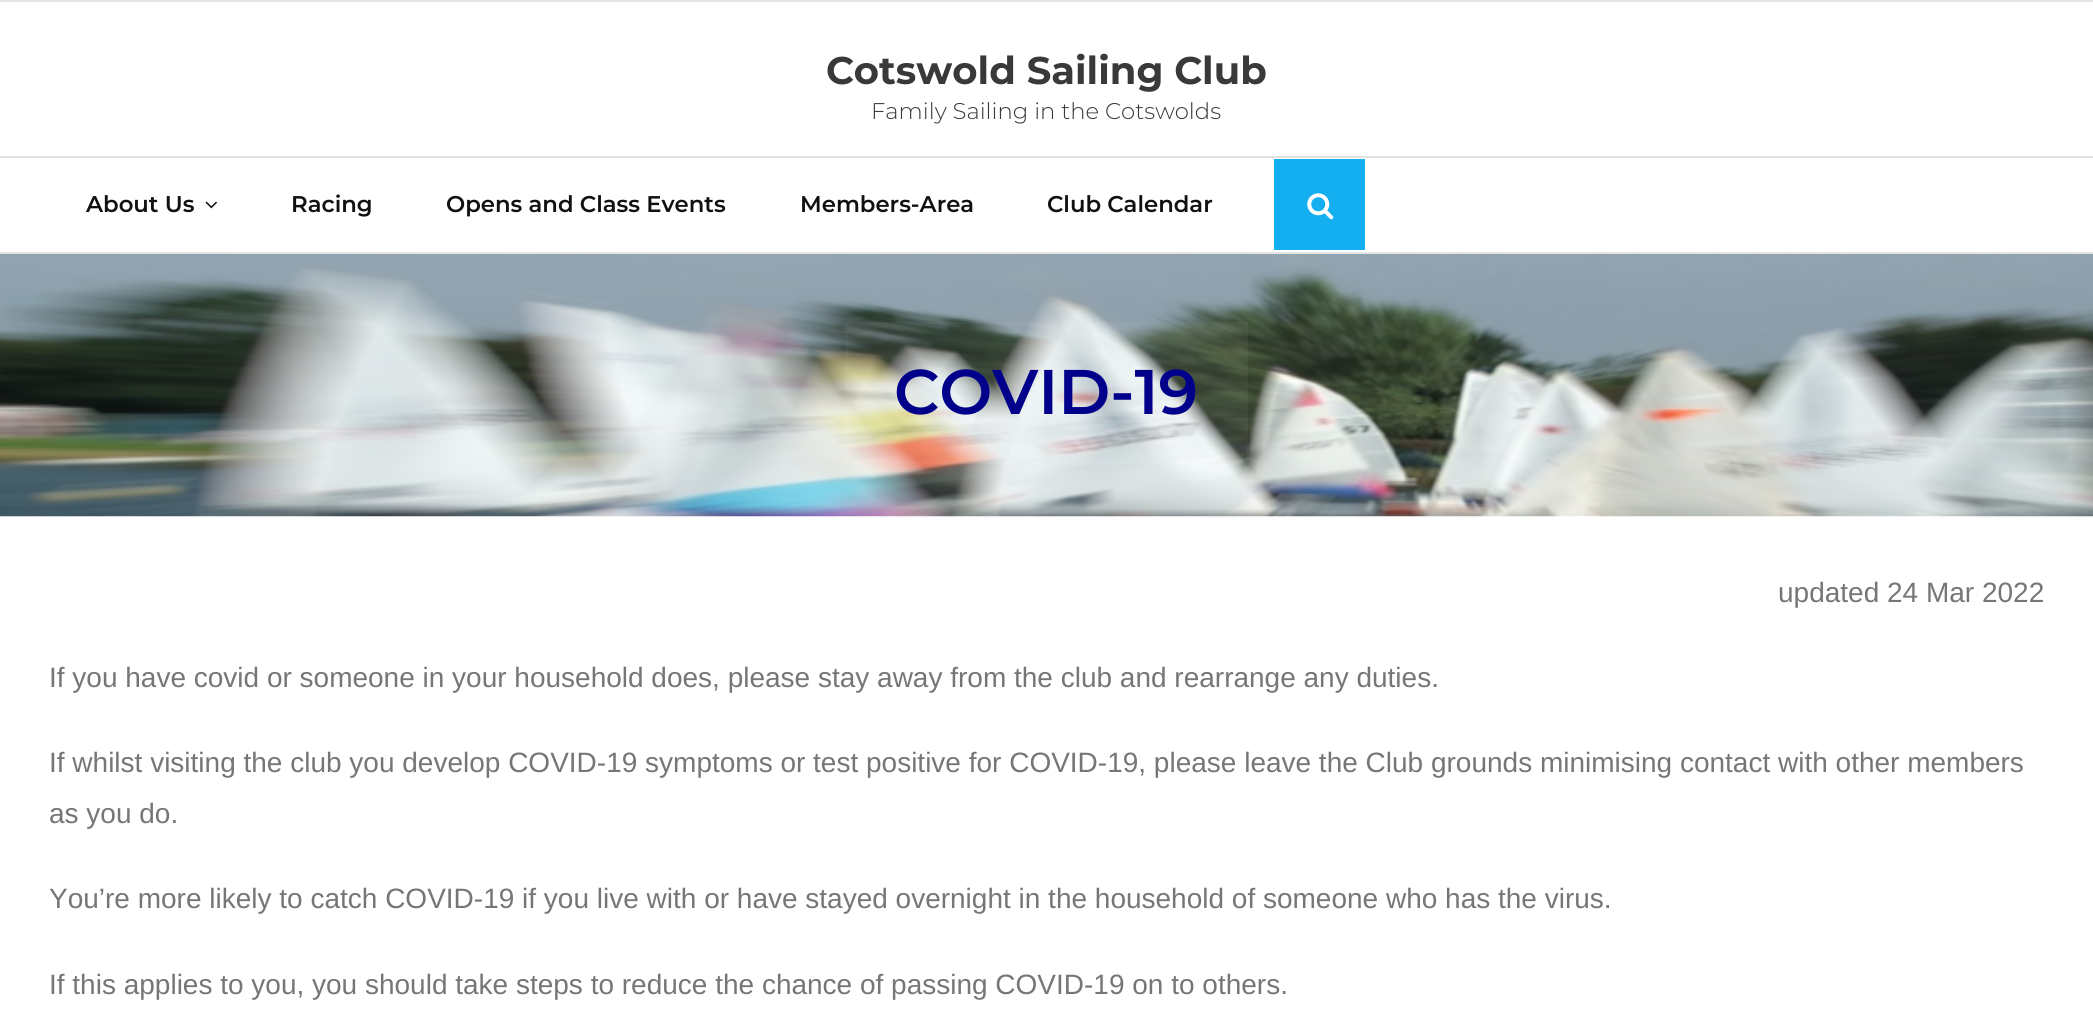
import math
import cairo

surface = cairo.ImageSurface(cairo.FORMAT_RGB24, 2093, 1021)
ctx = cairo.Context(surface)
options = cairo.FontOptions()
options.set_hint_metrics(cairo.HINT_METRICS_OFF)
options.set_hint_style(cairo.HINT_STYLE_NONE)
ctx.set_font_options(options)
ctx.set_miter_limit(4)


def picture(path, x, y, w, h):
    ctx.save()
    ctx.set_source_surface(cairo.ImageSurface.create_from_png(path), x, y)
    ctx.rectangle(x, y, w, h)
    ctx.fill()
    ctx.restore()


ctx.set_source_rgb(1, 1, 1)
ctx.paint()
ctx.set_source_rgb(0.898, 0.898, 0.898)
ctx.rectangle(0, 0, 2093, 2)
ctx.fill()
ctx.rectangle(0, 252, 2093, 2)
ctx.fill()
ctx.select_font_face("Montserrat", cairo.FONT_SLANT_NORMAL, cairo.FONT_WEIGHT_BOLD)
ctx.set_font_size(38.5)
ctx.set_source_rgb(0.227, 0.224, 0.224)
ctx.move_to(826, 84)
ctx.show_text("Cotswold Sailing Club")
ctx.select_font_face("Montserrat Light")
ctx.set_font_size(22.75)
ctx.move_to(871, 119)
ctx.show_text("Family Sailing in the Cotswolds")
ctx.set_source_rgb(0.882, 0.882, 0.882)
ctx.rectangle(0, 156, 2093, 2)
ctx.fill()
ctx.select_font_face("Montserrat SemiBold")
ctx.set_source_rgb(0.067, 0.067, 0.067)
ctx.move_to(86, 212)
ctx.show_text("About Us")
picture("img1.png", 205, 201, 12, 8)
ctx.move_to(291, 212)
ctx.show_text("Racing")
ctx.move_to(446, 212)
ctx.show_text("Opens and Class Events")
ctx.move_to(800, 212)
ctx.show_text("Members-Area")
ctx.move_to(1047, 212)
ctx.show_text("Club Calendar")
ctx.rectangle(1275, 160, 89, 89)
ctx.set_source_rgb(0.075, 0.686, 0.941)
ctx.stroke()
ctx.rectangle(1276, 161, 87, 87)
ctx.fill()
picture("img2.png", 1307, 193, 27, 27)
picture("img3.png", 0, 254, 2093, 263)
ctx.set_source_rgba(1, 1, 1, 0.05)
ctx.rectangle(845, 322, 403, 142)
ctx.fill()
ctx.set_font_size(63)
ctx.set_source_rgb(0, 0, 0.545)
ctx.move_to(894, 414)
ctx.show_text("COVID-19")
ctx.select_font_face("Liberation Sans")
ctx.set_font_size(28)
ctx.set_source_rgb(0.463, 0.463, 0.463)
ctx.move_to(1778, 602)
ctx.show_text("updated 24 Mar 2022")
ctx.move_to(49, 687)
ctx.show_text("If you have covid or someone in your household does, please stay away from the club and rearrange any duties.")
ctx.move_to(49, 772)
ctx.show_text("If whilst visiting the club you develop COVID-19 symptoms or test positive for COVID-19, please leave the Club grounds minimising contact with other members")
ctx.move_to(49, 823)
ctx.show_text("as you do.")
ctx.move_to(49, 908)
ctx.show_text("You’re more likely to catch COVID-19 if you live with or have stayed overnight in the household of someone who has the virus.")
ctx.move_to(49, 994)
ctx.show_text("If this applies to you, you should take steps to reduce the chance of passing COVID-19 on to others.")
surface.write_to_png("page.png")
